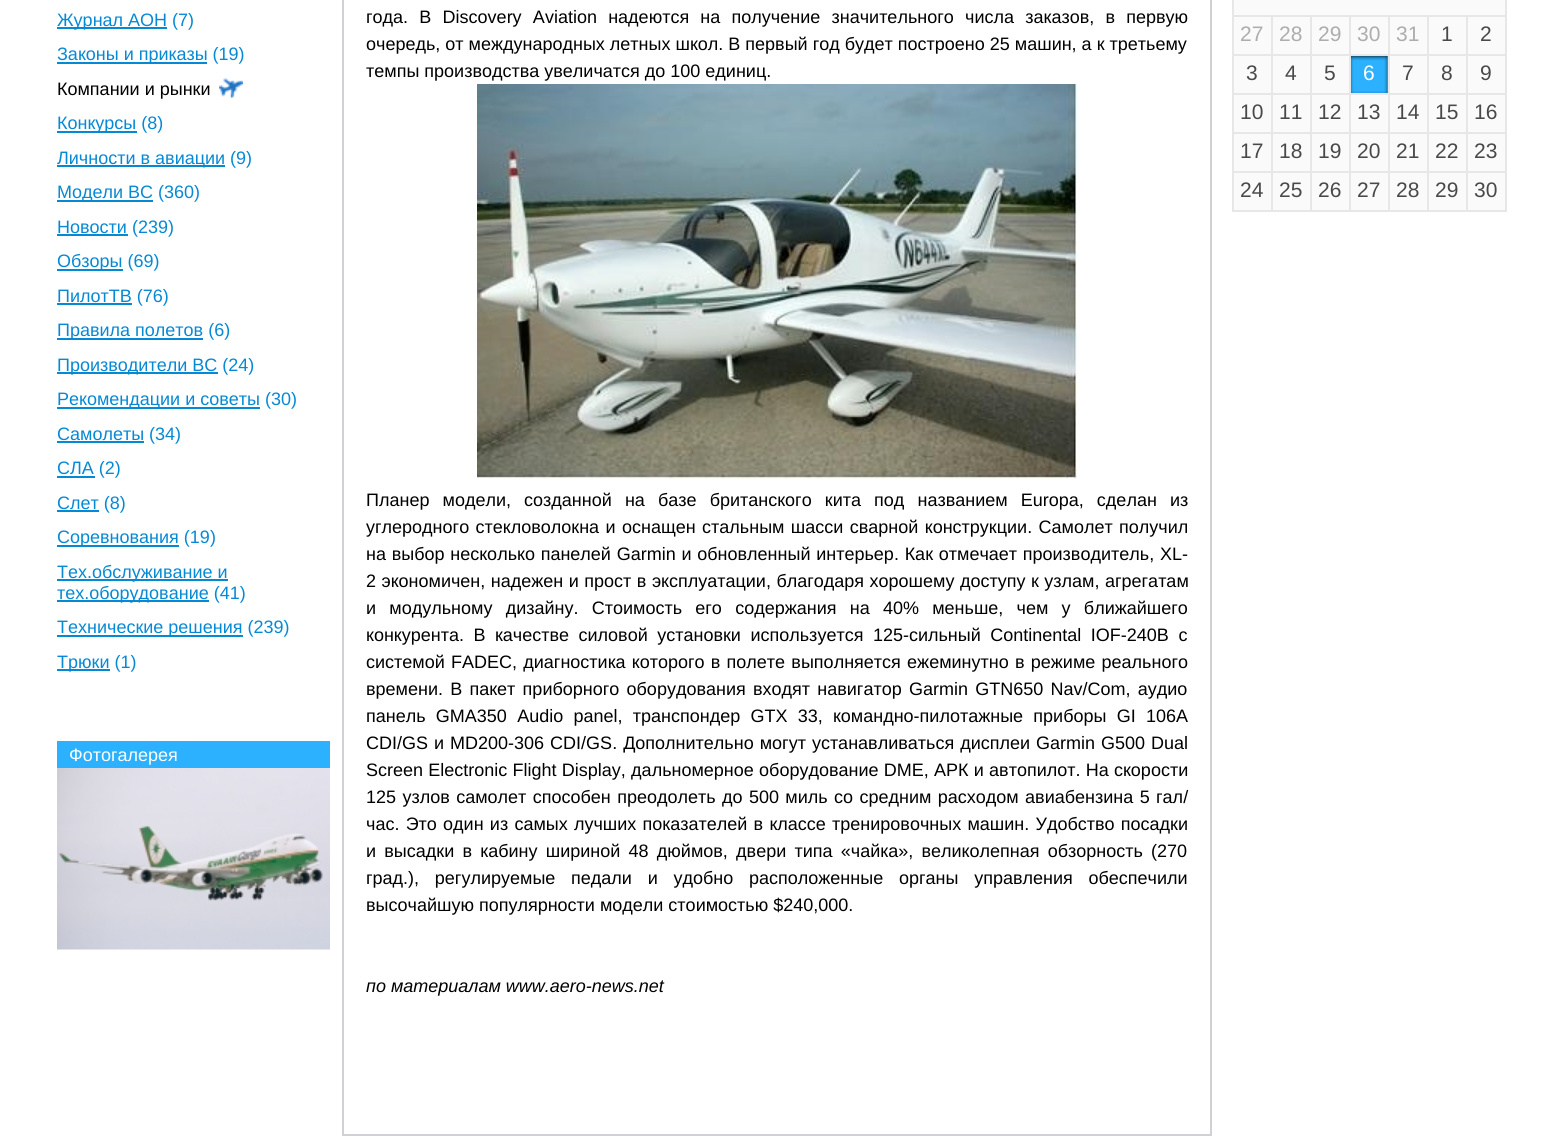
import math
import cairo

surface = cairo.ImageSurface(cairo.FORMAT_RGB24, 1566, 1143)
ctx = cairo.Context(surface)
options = cairo.FontOptions()
options.set_hint_metrics(cairo.HINT_METRICS_OFF)
options.set_hint_style(cairo.HINT_STYLE_NONE)
ctx.set_font_options(options)
ctx.set_miter_limit(4)


def spaced_text(x, y, s, letter, word):
    ctx.move_to(x, y)
    for ch in s:
        ctx.show_text(ch)
        ctx.rel_move_to(letter + word * (ch == ' '), 0)


def picture(path, x, y, w, h):
    ctx.save()
    ctx.set_source_surface(cairo.ImageSurface.create_from_png(path), x, y)
    ctx.rectangle(x, y, w, h)
    ctx.fill()
    ctx.restore()


ctx.set_source_rgb(1, 1, 1)
ctx.paint()
ctx.set_source_rgb(0.02, 0.537, 0.835)
ctx.rectangle(57, 27, 110, 2)
ctx.fill()
ctx.select_font_face("Liberation Sans")
ctx.set_font_size(18)
ctx.move_to(57, 26)
ctx.show_text("Журнал АОН (7)")
ctx.rectangle(57, 62, 150, 2)
ctx.fill()
ctx.move_to(57, 60)
ctx.show_text("Законы и приказы (19)")
ctx.set_source_rgb(0, 0, 0)
ctx.move_to(57, 95)
ctx.show_text("Компании и рынки")
picture("img1.png", 219, 78, 24, 20)
ctx.set_source_rgb(0.02, 0.537, 0.835)
ctx.rectangle(57, 131, 80, 2)
ctx.fill()
ctx.move_to(57, 129)
ctx.show_text("Конкурсы (8)")
ctx.rectangle(57, 165, 168, 2)
ctx.fill()
ctx.move_to(57, 164)
ctx.show_text("Личности в авиации (9)")
ctx.rectangle(57, 200, 96, 2)
ctx.fill()
ctx.move_to(57, 198)
ctx.show_text("Модели ВС (360)")
ctx.rectangle(57, 234, 71, 2)
ctx.fill()
ctx.move_to(57, 233)
ctx.show_text("Новости (239)")
ctx.rectangle(57, 269, 66, 2)
ctx.fill()
ctx.move_to(57, 267)
ctx.show_text("Обзоры (69)")
ctx.rectangle(57, 303, 75, 2)
ctx.fill()
ctx.move_to(57, 302)
ctx.show_text("ПилотТВ (76)")
ctx.rectangle(57, 338, 146, 2)
ctx.fill()
ctx.move_to(57, 336)
ctx.show_text("Правила полетов (6)")
ctx.rectangle(57, 372, 161, 2)
ctx.fill()
ctx.move_to(57, 371)
ctx.show_text("Производители ВС (24)")
ctx.rectangle(57, 407, 203, 2)
ctx.fill()
ctx.move_to(57, 405)
ctx.show_text("Рекомендации и советы (30)")
ctx.rectangle(57, 441, 87, 2)
ctx.fill()
ctx.move_to(57, 440)
ctx.show_text("Самолеты (34)")
ctx.rectangle(57, 476, 38, 2)
ctx.fill()
ctx.move_to(57, 474)
ctx.show_text("СЛА (2)")
ctx.rectangle(57, 510, 42, 2)
ctx.fill()
ctx.move_to(57, 509)
ctx.show_text("Слет (8)")
ctx.rectangle(57, 545, 122, 2)
ctx.fill()
ctx.move_to(57, 543)
ctx.show_text("Соревнования (19)")
ctx.rectangle(57, 579, 171, 2)
ctx.fill()
ctx.move_to(57, 578)
ctx.show_text("Тех.обслуживание и")
ctx.rectangle(57, 600, 152, 2)
ctx.fill()
ctx.move_to(57, 599)
ctx.show_text("тех.оборудование (41)")
ctx.rectangle(57, 635, 186, 2)
ctx.fill()
ctx.move_to(57, 633)
ctx.show_text("Технические решения (239)")
ctx.rectangle(57, 669, 53, 2)
ctx.fill()
ctx.move_to(57, 668)
ctx.show_text("Трюки (1)")
ctx.set_source_rgb(0.169, 0.694, 1)
ctx.rectangle(57, 741, 273, 27)
ctx.fill()
ctx.set_source_rgb(1, 1, 1)
ctx.move_to(69, 761)
ctx.show_text("Фотогалерея")
picture("img2.png", 57, 768, 273, 182)
ctx.rectangle(343, -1, 868, 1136)
ctx.set_source_rgb(0.82, 0.816, 0.835)
ctx.stroke()
ctx.set_source_rgb(0, 0, 0)
spaced_text(366, 23, "года. В Discovery Aviation надеются на получение значительного числа заказов, в первую", 0, 6.25)
ctx.move_to(366, 50)
ctx.show_text("очередь, от международных летных школ. В первый год будет построено 25 машин, а к третьему")
ctx.move_to(366, 77)
ctx.show_text("темпы производства увеличатся до 100 единиц.")
picture("img3.png", 477, 84, 600, 395)
spaced_text(366, 506, "Планер модели, созданной на базе британского кита под названием Europa, сделан из", 0, 8.1)
spaced_text(366, 533, "углеродного стекловолокна и оснащен стальным шасси сварной конструкции. Самолет получил", 0, 1.4)
spaced_text(366, 560, "на выбор несколько панелей Garmin и обновленный интерьер. Как отмечает производитель, XL-", 0, 0.75)
spaced_text(366, 587, "2 экономичен, надежен и прост в эксплуатации, благодаря хорошему доступу к узлам, агрегатам", 0, 0.5)
spaced_text(366, 614, "и модульному дизайну. Стоимость его содержания на 40% меньше, чем у ближайшего", 0, 8.25)
spaced_text(366, 641, "конкурента. В качестве силовой установки используется 125-сильный Continental IOF-240B с", 0, 4.5)
spaced_text(366, 668, "системой FADEC, диагностика которого в полете выполняется ежеминутно в режиме реального", 0, 1.25)
spaced_text(366, 695, "времени. В пакет приборного оборудования входят навигатор Garmin GTN650 Nav/Com, аудио", 0, 2.25)
spaced_text(366, 722, "панель GMA350 Audio panel, транспондер GTX 33, командно-пилотажные приборы GI 106A", 0, 5.25)
spaced_text(366, 749, "CDI/GS и MD200-306 CDI/GS. Дополнительно могут устанавливаться дисплеи Garmin G500 Dual", 0, 1)
spaced_text(366, 776, "Screen Electronic Flight Display, дальномерное оборудование DME, АРК и автопилот. На скорости", 0, 0.25)
spaced_text(366, 803, "125 узлов самолет способен преодолеть до 500 миль со средним расходом авиабензина 5 гал/", 0, 1.4)
spaced_text(366, 830, "час. Это один из самых лучших показателей в классе тренировочных машин. Удобство посадки", 0, 1.25)
spaced_text(366, 857, "и высадки в кабину шириной 48 дюймов, двери типа «чайка», великолепная обзорность (270", 0, 3.25)
spaced_text(366, 884, "град.), регулируемые педали и удобно расположенные органы управления обеспечили", 0, 10.75)
ctx.move_to(366, 911)
ctx.show_text("высочайшую популярности модели стоимостью $240,000.")
ctx.select_font_face("Liberation Sans", cairo.FONT_SLANT_ITALIC)
ctx.move_to(366, 992)
ctx.show_text("по материалам www.aero-news.net")
ctx.set_source_rgb(0.98, 0.98, 0.98)
ctx.rectangle(1234, 0, 271, 210)
ctx.fill()
ctx.set_source_rgb(0.906, 0.906, 0.906)
ctx.rectangle(1505, 0, 2, 17)
ctx.fill()
ctx.rectangle(1232, 0, 2, 17)
ctx.fill()
ctx.rectangle(1466, 15, 40, 2)
ctx.fill()
ctx.rectangle(1466, 54, 40, 2)
ctx.fill()
ctx.rectangle(1466, 93, 40, 2)
ctx.fill()
ctx.rectangle(1466, 132, 40, 2)
ctx.fill()
ctx.rectangle(1466, 171, 40, 2)
ctx.fill()
ctx.rectangle(1505, 171, 2, 41)
ctx.fill()
ctx.rectangle(1466, 210, 40, 2)
ctx.fill()
ctx.rectangle(1466, 171, 2, 41)
ctx.fill()
ctx.rectangle(1427, 171, 40, 2)
ctx.fill()
ctx.rectangle(1466, 132, 2, 41)
ctx.fill()
ctx.rectangle(1427, 132, 40, 2)
ctx.fill()
ctx.rectangle(1466, 93, 2, 41)
ctx.fill()
ctx.rectangle(1427, 93, 40, 2)
ctx.fill()
ctx.rectangle(1466, 54, 2, 41)
ctx.fill()
ctx.rectangle(1427, 54, 40, 2)
ctx.fill()
ctx.rectangle(1466, 15, 2, 41)
ctx.fill()
ctx.rectangle(1427, 15, 40, 2)
ctx.fill()
ctx.rectangle(1427, 210, 40, 2)
ctx.fill()
ctx.rectangle(1427, 171, 2, 41)
ctx.fill()
ctx.rectangle(1388, 171, 40, 2)
ctx.fill()
ctx.rectangle(1427, 132, 2, 41)
ctx.fill()
ctx.rectangle(1388, 132, 40, 2)
ctx.fill()
ctx.rectangle(1427, 93, 2, 41)
ctx.fill()
ctx.rectangle(1388, 93, 40, 2)
ctx.fill()
ctx.rectangle(1427, 54, 2, 41)
ctx.fill()
ctx.rectangle(1388, 54, 40, 2)
ctx.fill()
ctx.rectangle(1427, 15, 2, 41)
ctx.fill()
ctx.rectangle(1388, 15, 40, 2)
ctx.fill()
ctx.rectangle(1388, 210, 40, 2)
ctx.fill()
ctx.rectangle(1388, 171, 2, 41)
ctx.fill()
ctx.rectangle(1349, 171, 40, 2)
ctx.fill()
ctx.rectangle(1388, 132, 2, 41)
ctx.fill()
ctx.rectangle(1349, 132, 40, 2)
ctx.fill()
ctx.rectangle(1388, 93, 2, 41)
ctx.fill()
ctx.rectangle(1349, 93, 40, 2)
ctx.fill()
ctx.rectangle(1388, 54, 2, 41)
ctx.fill()
ctx.rectangle(1349, 54, 40, 2)
ctx.fill()
ctx.rectangle(1388, 15, 2, 41)
ctx.fill()
ctx.rectangle(1349, 15, 40, 2)
ctx.fill()
ctx.rectangle(1349, 210, 40, 2)
ctx.fill()
ctx.rectangle(1349, 171, 2, 41)
ctx.fill()
ctx.rectangle(1310, 171, 40, 2)
ctx.fill()
ctx.rectangle(1349, 132, 2, 41)
ctx.fill()
ctx.rectangle(1310, 132, 40, 2)
ctx.fill()
ctx.rectangle(1349, 93, 2, 41)
ctx.fill()
ctx.rectangle(1310, 93, 40, 2)
ctx.fill()
ctx.rectangle(1349, 54, 2, 41)
ctx.fill()
ctx.rectangle(1310, 54, 40, 2)
ctx.fill()
ctx.rectangle(1349, 15, 2, 41)
ctx.fill()
ctx.rectangle(1310, 15, 40, 2)
ctx.fill()
ctx.rectangle(1310, 210, 40, 2)
ctx.fill()
ctx.rectangle(1310, 171, 2, 41)
ctx.fill()
ctx.rectangle(1271, 171, 40, 2)
ctx.fill()
ctx.rectangle(1310, 132, 2, 41)
ctx.fill()
ctx.rectangle(1271, 132, 40, 2)
ctx.fill()
ctx.rectangle(1310, 93, 2, 41)
ctx.fill()
ctx.rectangle(1271, 93, 40, 2)
ctx.fill()
ctx.rectangle(1310, 54, 2, 41)
ctx.fill()
ctx.rectangle(1271, 54, 40, 2)
ctx.fill()
ctx.rectangle(1310, 15, 2, 41)
ctx.fill()
ctx.rectangle(1271, 15, 40, 2)
ctx.fill()
ctx.rectangle(1271, 210, 40, 2)
ctx.fill()
ctx.rectangle(1271, 171, 2, 41)
ctx.fill()
ctx.rectangle(1232, 171, 40, 2)
ctx.fill()
ctx.rectangle(1271, 132, 2, 41)
ctx.fill()
ctx.rectangle(1232, 132, 40, 2)
ctx.fill()
ctx.rectangle(1271, 93, 2, 41)
ctx.fill()
ctx.rectangle(1232, 93, 40, 2)
ctx.fill()
ctx.rectangle(1271, 54, 2, 41)
ctx.fill()
ctx.rectangle(1232, 54, 40, 2)
ctx.fill()
ctx.rectangle(1271, 15, 2, 41)
ctx.fill()
ctx.rectangle(1232, 15, 40, 2)
ctx.fill()
ctx.rectangle(1232, 210, 40, 2)
ctx.fill()
ctx.rectangle(1232, 171, 2, 41)
ctx.fill()
ctx.rectangle(1232, 132, 2, 41)
ctx.fill()
ctx.rectangle(1232, 93, 2, 41)
ctx.fill()
ctx.rectangle(1232, 54, 2, 41)
ctx.fill()
ctx.rectangle(1232, 15, 2, 41)
ctx.fill()
ctx.select_font_face("Liberation Sans")
ctx.set_font_size(21)
ctx.set_source_rgb(0.678, 0.678, 0.678)
ctx.move_to(1240, 41)
ctx.show_text("27")
ctx.move_to(1279, 41)
ctx.show_text("28")
ctx.move_to(1318, 41)
ctx.show_text("29")
ctx.move_to(1357, 41)
ctx.show_text("30")
ctx.move_to(1396, 41)
ctx.show_text("31")
ctx.set_source_rgb(0.286, 0.286, 0.286)
ctx.move_to(1441, 41)
ctx.show_text("1")
ctx.set_source_rgb(0.906, 0.906, 0.906)
ctx.rectangle(1505, 132, 2, 41)
ctx.fill()
ctx.rectangle(1505, 93, 2, 41)
ctx.fill()
ctx.rectangle(1505, 54, 2, 41)
ctx.fill()
ctx.rectangle(1505, 15, 2, 41)
ctx.fill()
ctx.set_source_rgb(0.286, 0.286, 0.286)
ctx.move_to(1480, 41)
ctx.show_text("2")
ctx.move_to(1246, 80)
ctx.show_text("3")
ctx.move_to(1285, 80)
ctx.show_text("4")
ctx.move_to(1324, 80)
ctx.show_text("5")
ctx.set_source_rgb(0.169, 0.694, 1)
ctx.rectangle(1387, 56, 1, 37)
ctx.fill()
picture("img4.png", 1351, 56, 37, 37)
ctx.set_source_rgb(1, 1, 1)
ctx.move_to(1363, 80)
ctx.show_text("6")
ctx.set_source_rgb(0.286, 0.286, 0.286)
ctx.move_to(1402, 80)
ctx.show_text("7")
ctx.move_to(1441, 80)
ctx.show_text("8")
ctx.move_to(1480, 80)
ctx.show_text("9")
ctx.move_to(1240, 119)
ctx.show_text("10")
ctx.move_to(1279, 119)
ctx.show_text("11")
ctx.move_to(1318, 119)
ctx.show_text("12")
ctx.move_to(1357, 119)
ctx.show_text("13")
ctx.move_to(1396, 119)
ctx.show_text("14")
ctx.move_to(1435, 119)
ctx.show_text("15")
ctx.move_to(1474, 119)
ctx.show_text("16")
ctx.move_to(1240, 158)
ctx.show_text("17")
ctx.move_to(1279, 158)
ctx.show_text("18")
ctx.move_to(1318, 158)
ctx.show_text("19")
ctx.move_to(1357, 158)
ctx.show_text("20")
ctx.move_to(1396, 158)
ctx.show_text("21")
ctx.move_to(1435, 158)
ctx.show_text("22")
ctx.move_to(1474, 158)
ctx.show_text("23")
ctx.move_to(1240, 197)
ctx.show_text("24")
ctx.move_to(1279, 197)
ctx.show_text("25")
ctx.move_to(1318, 197)
ctx.show_text("26")
ctx.move_to(1357, 197)
ctx.show_text("27")
ctx.move_to(1396, 197)
ctx.show_text("28")
ctx.move_to(1435, 197)
ctx.show_text("29")
ctx.move_to(1474, 197)
ctx.show_text("30")
surface.write_to_png("page.png")
